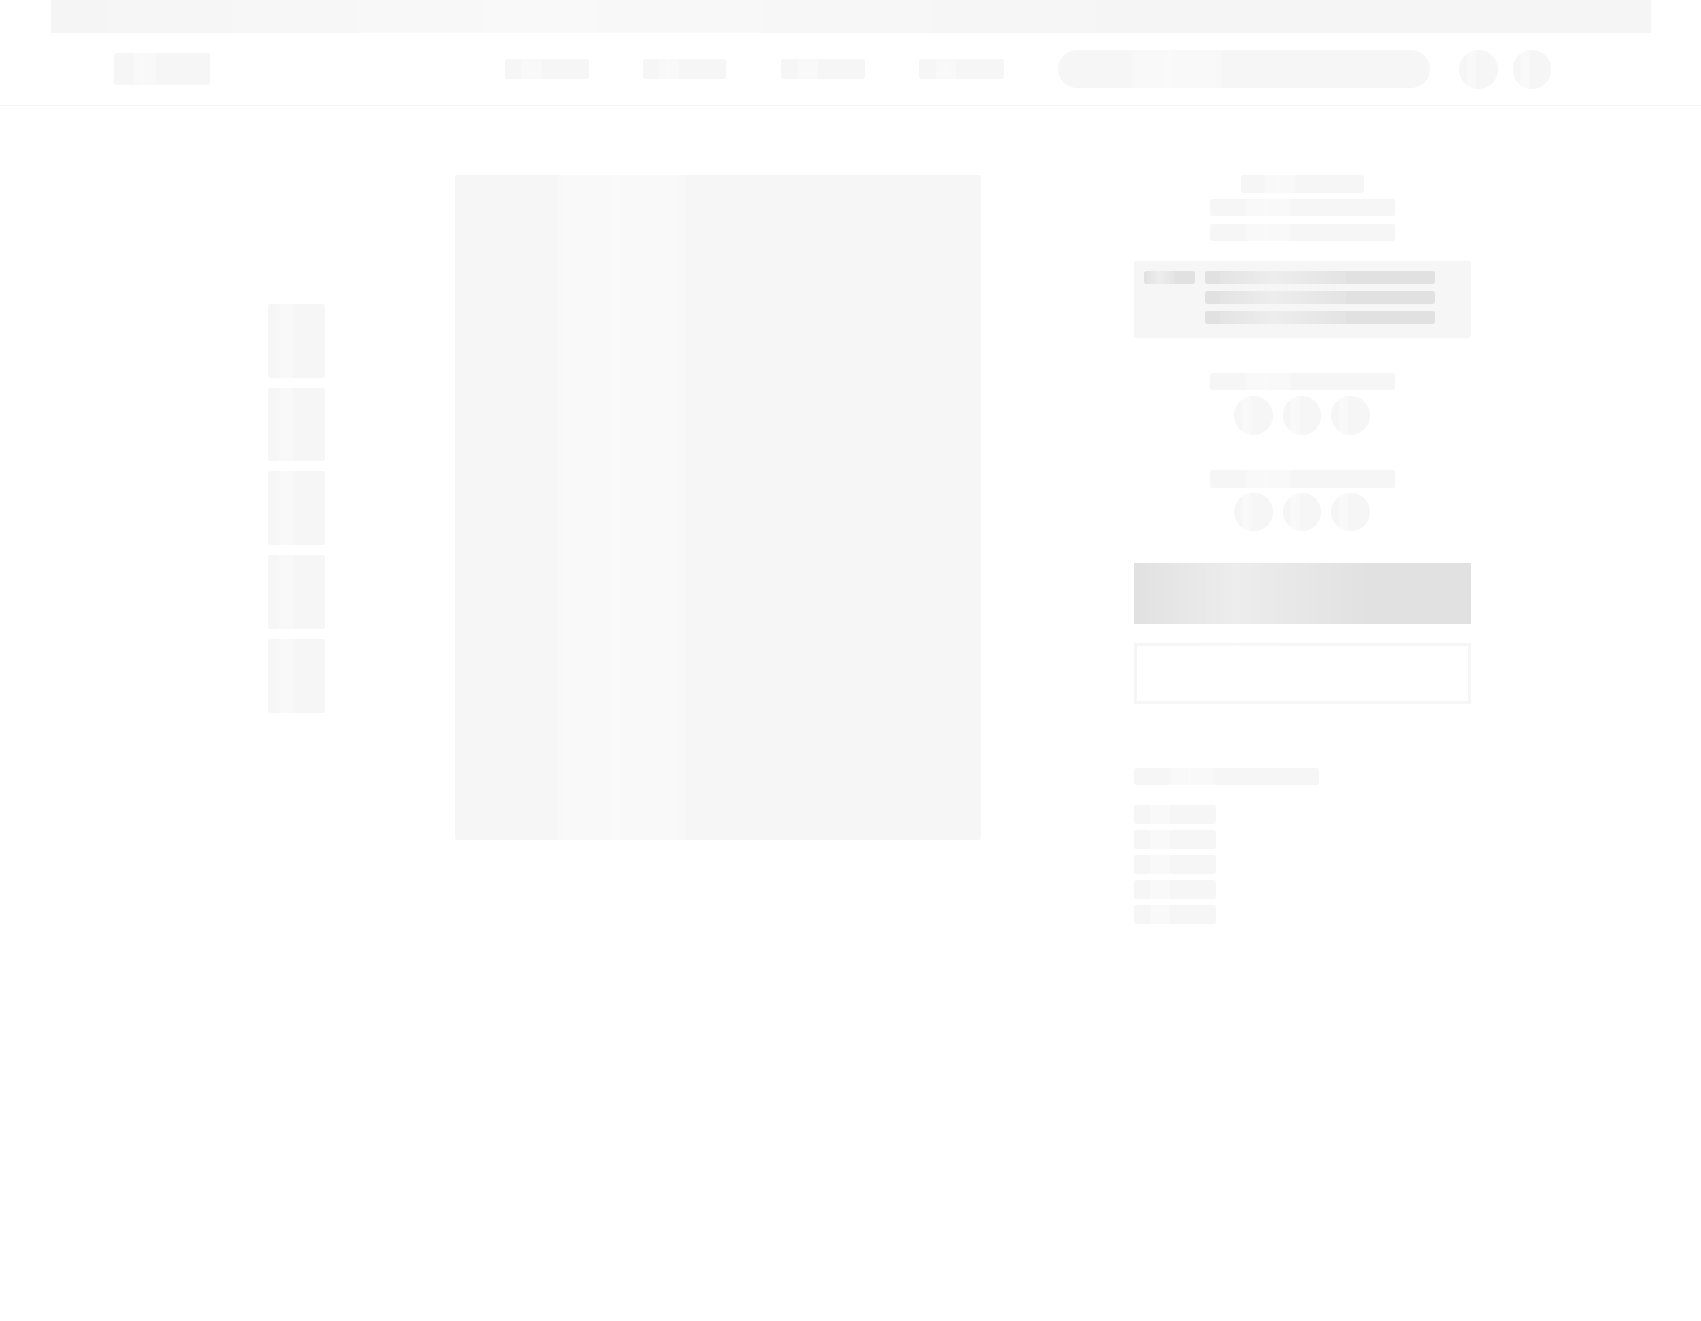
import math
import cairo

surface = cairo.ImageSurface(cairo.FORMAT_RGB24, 1701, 1321)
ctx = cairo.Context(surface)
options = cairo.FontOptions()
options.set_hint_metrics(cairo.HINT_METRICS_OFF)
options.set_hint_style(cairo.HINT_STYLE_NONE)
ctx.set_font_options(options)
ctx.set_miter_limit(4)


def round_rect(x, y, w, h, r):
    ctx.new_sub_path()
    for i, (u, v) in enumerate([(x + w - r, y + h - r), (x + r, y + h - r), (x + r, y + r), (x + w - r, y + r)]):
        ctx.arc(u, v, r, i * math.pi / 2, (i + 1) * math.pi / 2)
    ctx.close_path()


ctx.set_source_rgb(1, 1, 1)
ctx.paint()
ctx.set_source_rgb(0.961, 0.961, 0.961)
ctx.rectangle(0, 105, 1701, 1)
ctx.fill()
gradient = cairo.LinearGradient(51, 16, 1651, 16)
gradient.add_color_stop_rgba(0, 0.961, 0.961, 0.961, 1)
gradient.add_color_stop_rgba(0.3, 0.976, 0.976, 0.976, 1)
gradient.add_color_stop_rgba(0.7, 0.961, 0.961, 0.961, 1)
ctx.set_source(gradient)
ctx.rectangle(51, 0, 1600, 33)
ctx.fill()
ctx.set_source_rgb(0.961, 0.961, 0.961)
round_rect(114, 53, 96, 32, 2.5)
ctx.fill()
gradient = cairo.LinearGradient(114, 69, 210, 69)
gradient.add_color_stop_rgba(0, 1, 1, 1, 0)
gradient.add_color_stop_rgba(0.3, 1, 1, 1, 0.4)
gradient.add_color_stop_rgba(0.7, 1, 1, 1, 0)
ctx.set_source(gradient)
ctx.rectangle(133, 53, 23, 32)
ctx.fill()
ctx.set_source_rgb(0.961, 0.961, 0.961)
round_rect(505, 59, 84, 20, 2.5)
ctx.fill()
gradient = cairo.LinearGradient(505, 69, 589, 69)
gradient.add_color_stop_rgba(0, 1, 1, 1, 0)
gradient.add_color_stop_rgba(0.3, 1, 1, 1, 0.4)
gradient.add_color_stop_rgba(0.7, 1, 1, 1, 0)
ctx.set_source(gradient)
ctx.rectangle(521, 59, 21, 20)
ctx.fill()
ctx.set_source_rgb(0.961, 0.961, 0.961)
round_rect(643, 59, 83, 20, 2.5)
ctx.fill()
gradient = cairo.LinearGradient(643, 69, 726, 69)
gradient.add_color_stop_rgba(0, 1, 1, 1, 0)
gradient.add_color_stop_rgba(0.3, 1, 1, 1, 0.4)
gradient.add_color_stop_rgba(0.7, 1, 1, 1, 0)
ctx.set_source(gradient)
ctx.rectangle(659, 59, 20, 20)
ctx.fill()
ctx.set_source_rgb(0.961, 0.961, 0.961)
round_rect(781, 59, 84, 20, 2.5)
ctx.fill()
gradient = cairo.LinearGradient(781, 69, 865, 69)
gradient.add_color_stop_rgba(0, 1, 1, 1, 0)
gradient.add_color_stop_rgba(0.3, 1, 1, 1, 0.4)
gradient.add_color_stop_rgba(0.7, 1, 1, 1, 0)
ctx.set_source(gradient)
ctx.rectangle(797, 59, 21, 20)
ctx.fill()
ctx.set_source_rgb(0.961, 0.961, 0.961)
round_rect(919, 59, 85, 20, 2.5)
ctx.fill()
gradient = cairo.LinearGradient(919, 69, 1004, 69)
gradient.add_color_stop_rgba(0, 1, 1, 1, 0)
gradient.add_color_stop_rgba(0.3, 1, 1, 1, 0.4)
gradient.add_color_stop_rgba(0.7, 1, 1, 1, 0)
ctx.set_source(gradient)
ctx.rectangle(936, 59, 20, 20)
ctx.fill()
ctx.set_source_rgb(0.961, 0.961, 0.961)
round_rect(1058, 50, 372, 38, 19)
ctx.fill()
gradient = cairo.LinearGradient(1058, 69, 1430, 69)
gradient.add_color_stop_rgba(0, 1, 1, 1, 0)
gradient.add_color_stop_rgba(0.3, 1, 1, 1, 0.4)
gradient.add_color_stop_rgba(0.7, 1, 1, 1, 0)
ctx.set_source(gradient)
ctx.rectangle(1131, 50, 90, 38)
ctx.fill()
ctx.set_source_rgb(0.961, 0.961, 0.961)
ctx.arc(1478.5, 69.5, 19.5, 0, 2 * math.pi)
ctx.fill()
gradient = cairo.LinearGradient(1459, 69, 1498, 69)
gradient.add_color_stop_rgba(0, 1, 1, 1, 0)
gradient.add_color_stop_rgba(0.3, 1, 1, 1, 0.4)
gradient.add_color_stop_rgba(0.7, 1, 1, 1, 0)
ctx.set_source(gradient)
ctx.rectangle(1467, 51, 9, 37)
ctx.fill()
ctx.set_source_rgb(0.961, 0.961, 0.961)
round_rect(1513, 50, 38, 39, 19)
ctx.fill()
gradient = cairo.LinearGradient(1513, 69, 1551, 69)
gradient.add_color_stop_rgba(0, 1, 1, 1, 0)
gradient.add_color_stop_rgba(0.3, 1, 1, 1, 0.4)
gradient.add_color_stop_rgba(0.7, 1, 1, 1, 0)
ctx.set_source(gradient)
ctx.rectangle(1520, 51, 10, 37)
ctx.fill()
ctx.set_source_rgb(0.961, 0.961, 0.961)
round_rect(268, 304, 57, 74, 2.5)
ctx.fill()
gradient = cairo.LinearGradient(268, 341, 325, 341)
gradient.add_color_stop_rgba(0, 1, 1, 1, 0)
gradient.add_color_stop_rgba(0.3, 1, 1, 1, 0.4)
gradient.add_color_stop_rgba(0.7, 1, 1, 1, 0)
ctx.set_source(gradient)
ctx.rectangle(279, 304, 14, 74)
ctx.fill()
ctx.set_source_rgb(0.961, 0.961, 0.961)
round_rect(268, 388, 57, 73, 2.5)
ctx.fill()
gradient = cairo.LinearGradient(268, 424, 325, 424)
gradient.add_color_stop_rgba(0, 1, 1, 1, 0)
gradient.add_color_stop_rgba(0.3, 1, 1, 1, 0.4)
gradient.add_color_stop_rgba(0.7, 1, 1, 1, 0)
ctx.set_source(gradient)
ctx.rectangle(279, 388, 14, 73)
ctx.fill()
ctx.set_source_rgb(0.961, 0.961, 0.961)
round_rect(268, 471, 57, 74, 2.5)
ctx.fill()
gradient = cairo.LinearGradient(268, 508, 325, 508)
gradient.add_color_stop_rgba(0, 1, 1, 1, 0)
gradient.add_color_stop_rgba(0.3, 1, 1, 1, 0.4)
gradient.add_color_stop_rgba(0.7, 1, 1, 1, 0)
ctx.set_source(gradient)
ctx.rectangle(279, 471, 14, 74)
ctx.fill()
ctx.set_source_rgb(0.961, 0.961, 0.961)
round_rect(268, 555, 57, 74, 2.5)
ctx.fill()
gradient = cairo.LinearGradient(268, 592, 325, 592)
gradient.add_color_stop_rgba(0, 1, 1, 1, 0)
gradient.add_color_stop_rgba(0.3, 1, 1, 1, 0.4)
gradient.add_color_stop_rgba(0.7, 1, 1, 1, 0)
ctx.set_source(gradient)
ctx.rectangle(279, 555, 14, 74)
ctx.fill()
ctx.set_source_rgb(0.961, 0.961, 0.961)
round_rect(268, 639, 57, 74, 2.5)
ctx.fill()
gradient = cairo.LinearGradient(268, 676, 325, 676)
gradient.add_color_stop_rgba(0, 1, 1, 1, 0)
gradient.add_color_stop_rgba(0.3, 1, 1, 1, 0.4)
gradient.add_color_stop_rgba(0.7, 1, 1, 1, 0)
ctx.set_source(gradient)
ctx.rectangle(279, 639, 14, 74)
ctx.fill()
ctx.set_source_rgb(0.961, 0.961, 0.961)
round_rect(455, 175, 526, 665, 2.5)
ctx.fill()
gradient = cairo.LinearGradient(455, 508, 981, 508)
gradient.add_color_stop_rgba(0, 1, 1, 1, 0)
gradient.add_color_stop_rgba(0.3, 1, 1, 1, 0.4)
gradient.add_color_stop_rgba(0.7, 1, 1, 1, 0)
ctx.set_source(gradient)
ctx.rectangle(558, 175, 128, 665)
ctx.fill()
ctx.set_source_rgb(0.961, 0.961, 0.961)
round_rect(1241, 175, 123, 18, 2.5)
ctx.fill()
gradient = cairo.LinearGradient(1241, 184, 1364, 184)
gradient.add_color_stop_rgba(0, 1, 1, 1, 0)
gradient.add_color_stop_rgba(0.3, 1, 1, 1, 0.4)
gradient.add_color_stop_rgba(0.7, 1, 1, 1, 0)
ctx.set_source(gradient)
ctx.rectangle(1265, 175, 30, 18)
ctx.fill()
ctx.set_source_rgb(0.961, 0.961, 0.961)
round_rect(1210, 199, 185, 17, 2.5)
ctx.fill()
gradient = cairo.LinearGradient(1210, 208, 1395, 208)
gradient.add_color_stop_rgba(0, 1, 1, 1, 0)
gradient.add_color_stop_rgba(0.3, 1, 1, 1, 0.4)
gradient.add_color_stop_rgba(0.7, 1, 1, 1, 0)
ctx.set_source(gradient)
ctx.rectangle(1246, 199, 45, 17)
ctx.fill()
ctx.set_source_rgb(0.961, 0.961, 0.961)
round_rect(1210, 224, 185, 17, 2.5)
ctx.fill()
gradient = cairo.LinearGradient(1210, 233, 1395, 233)
gradient.add_color_stop_rgba(0, 1, 1, 1, 0)
gradient.add_color_stop_rgba(0.3, 1, 1, 1, 0.4)
gradient.add_color_stop_rgba(0.7, 1, 1, 1, 0)
ctx.set_source(gradient)
ctx.rectangle(1246, 224, 45, 17)
ctx.fill()
ctx.set_source_rgb(0.961, 0.961, 0.961)
round_rect(1134, 261, 337, 77, 2.5)
ctx.fill()
ctx.set_source_rgb(0.882, 0.882, 0.882)
round_rect(1144, 271, 51, 13, 2.5)
ctx.fill()
gradient = cairo.LinearGradient(1144, 278, 1195, 278)
gradient.add_color_stop_rgba(0, 1, 1, 1, 0)
gradient.add_color_stop_rgba(0.3, 1, 1, 1, 0.4)
gradient.add_color_stop_rgba(0.7, 1, 1, 1, 0)
ctx.set_source(gradient)
ctx.rectangle(1147, 271, 28, 13)
ctx.fill()
ctx.set_source_rgb(0.882, 0.882, 0.882)
round_rect(1205, 271, 230, 13, 2.5)
ctx.fill()
gradient = cairo.LinearGradient(1205, 278, 1435, 278)
gradient.add_color_stop_rgba(0, 1, 1, 1, 0)
gradient.add_color_stop_rgba(0.3, 1, 1, 1, 0.4)
gradient.add_color_stop_rgba(0.7, 1, 1, 1, 0)
ctx.set_source(gradient)
ctx.rectangle(1220, 271, 126, 13)
ctx.fill()
ctx.set_source_rgb(0.882, 0.882, 0.882)
round_rect(1205, 291, 230, 13, 2.5)
ctx.fill()
gradient = cairo.LinearGradient(1205, 298, 1435, 298)
gradient.add_color_stop_rgba(0, 1, 1, 1, 0)
gradient.add_color_stop_rgba(0.3, 1, 1, 1, 0.4)
gradient.add_color_stop_rgba(0.7, 1, 1, 1, 0)
ctx.set_source(gradient)
ctx.rectangle(1220, 291, 126, 13)
ctx.fill()
ctx.set_source_rgb(0.882, 0.882, 0.882)
round_rect(1205, 311, 230, 13, 2.5)
ctx.fill()
gradient = cairo.LinearGradient(1205, 318, 1435, 318)
gradient.add_color_stop_rgba(0, 1, 1, 1, 0)
gradient.add_color_stop_rgba(0.3, 1, 1, 1, 0.4)
gradient.add_color_stop_rgba(0.7, 1, 1, 1, 0)
ctx.set_source(gradient)
ctx.rectangle(1220, 311, 126, 13)
ctx.fill()
ctx.set_source_rgb(0.961, 0.961, 0.961)
round_rect(1210, 373, 185, 17, 2.5)
ctx.fill()
gradient = cairo.LinearGradient(1210, 381, 1395, 381)
gradient.add_color_stop_rgba(0, 1, 1, 1, 0)
gradient.add_color_stop_rgba(0.3, 1, 1, 1, 0.4)
gradient.add_color_stop_rgba(0.7, 1, 1, 1, 0)
ctx.set_source(gradient)
ctx.rectangle(1246, 373, 45, 17)
ctx.fill()
ctx.set_source_rgb(0.961, 0.961, 0.961)
ctx.arc(1253.5, 415.5, 19.5, 0, 2 * math.pi)
ctx.fill()
gradient = cairo.LinearGradient(1234, 416, 1273, 416)
gradient.add_color_stop_rgba(0, 1, 1, 1, 0)
gradient.add_color_stop_rgba(0.3, 1, 1, 1, 0.4)
gradient.add_color_stop_rgba(0.7, 1, 1, 1, 0)
ctx.set_source(gradient)
ctx.rectangle(1242, 397, 9, 37)
ctx.fill()
ctx.set_source_rgb(0.961, 0.961, 0.961)
round_rect(1283, 396, 38, 39, 19)
ctx.fill()
gradient = cairo.LinearGradient(1283, 416, 1321, 416)
gradient.add_color_stop_rgba(0, 1, 1, 1, 0)
gradient.add_color_stop_rgba(0.3, 1, 1, 1, 0.4)
gradient.add_color_stop_rgba(0.7, 1, 1, 1, 0)
ctx.set_source(gradient)
ctx.rectangle(1290, 397, 10, 37)
ctx.fill()
ctx.set_source_rgb(0.961, 0.961, 0.961)
ctx.arc(1350.5, 415.5, 19.5, 0, 2 * math.pi)
ctx.fill()
gradient = cairo.LinearGradient(1331, 416, 1370, 416)
gradient.add_color_stop_rgba(0, 1, 1, 1, 0)
gradient.add_color_stop_rgba(0.3, 1, 1, 1, 0.4)
gradient.add_color_stop_rgba(0.7, 1, 1, 1, 0)
ctx.set_source(gradient)
ctx.rectangle(1339, 397, 9, 37)
ctx.fill()
ctx.set_source_rgb(0.961, 0.961, 0.961)
round_rect(1210, 470, 185, 18, 2.5)
ctx.fill()
gradient = cairo.LinearGradient(1210, 479, 1395, 479)
gradient.add_color_stop_rgba(0, 1, 1, 1, 0)
gradient.add_color_stop_rgba(0.3, 1, 1, 1, 0.4)
gradient.add_color_stop_rgba(0.7, 1, 1, 1, 0)
ctx.set_source(gradient)
ctx.rectangle(1246, 470, 45, 18)
ctx.fill()
ctx.set_source_rgb(0.961, 0.961, 0.961)
round_rect(1234, 493, 39, 38, 19)
ctx.fill()
gradient = cairo.LinearGradient(1234, 512, 1273, 512)
gradient.add_color_stop_rgba(0, 1, 1, 1, 0)
gradient.add_color_stop_rgba(0.3, 1, 1, 1, 0.4)
gradient.add_color_stop_rgba(0.7, 1, 1, 1, 0)
ctx.set_source(gradient)
ctx.rectangle(1242, 494, 9, 36)
ctx.fill()
ctx.set_source_rgb(0.961, 0.961, 0.961)
ctx.arc(1302, 512, 19, 0, 2 * math.pi)
ctx.fill()
gradient = cairo.LinearGradient(1283, 512, 1321, 512)
gradient.add_color_stop_rgba(0, 1, 1, 1, 0)
gradient.add_color_stop_rgba(0.3, 1, 1, 1, 0.4)
gradient.add_color_stop_rgba(0.7, 1, 1, 1, 0)
ctx.set_source(gradient)
ctx.rectangle(1290, 494, 10, 36)
ctx.fill()
ctx.set_source_rgb(0.961, 0.961, 0.961)
round_rect(1331, 493, 39, 38, 19)
ctx.fill()
gradient = cairo.LinearGradient(1331, 512, 1370, 512)
gradient.add_color_stop_rgba(0, 1, 1, 1, 0)
gradient.add_color_stop_rgba(0.3, 1, 1, 1, 0.4)
gradient.add_color_stop_rgba(0.7, 1, 1, 1, 0)
ctx.set_source(gradient)
ctx.rectangle(1339, 494, 9, 36)
ctx.fill()
gradient = cairo.LinearGradient(1134, 593, 1471, 593)
gradient.add_color_stop_rgba(0, 0.882, 0.882, 0.882, 1)
gradient.add_color_stop_rgba(0.3, 0.929, 0.929, 0.929, 1)
gradient.add_color_stop_rgba(0.7, 0.882, 0.882, 0.882, 1)
ctx.set_source(gradient)
ctx.rectangle(1134, 563, 337, 61)
ctx.fill()
ctx.rectangle(1135.5, 644.5, 334, 58)
ctx.set_source_rgb(0.961, 0.961, 0.961)
ctx.set_line_width(3)
ctx.stroke()
gradient = cairo.LinearGradient(1136, 673, 1469, 673)
gradient.add_color_stop_rgba(0, 1, 1, 1, 0)
gradient.add_color_stop_rgba(0.3, 1, 1, 1, 0.4)
gradient.add_color_stop_rgba(0.7, 1, 1, 1, 0)
ctx.set_source(gradient)
ctx.rectangle(1201, 645, 81, 1)
ctx.fill()
ctx.set_source_rgb(0.961, 0.961, 0.961)
round_rect(1134, 768, 185, 17, 2.5)
ctx.fill()
gradient = cairo.LinearGradient(1134, 776, 1319, 776)
gradient.add_color_stop_rgba(0, 1, 1, 1, 0)
gradient.add_color_stop_rgba(0.3, 1, 1, 1, 0.4)
gradient.add_color_stop_rgba(0.7, 1, 1, 1, 0)
ctx.set_source(gradient)
ctx.rectangle(1170, 768, 45, 17)
ctx.fill()
ctx.set_source_rgb(0.961, 0.961, 0.961)
round_rect(1134, 805, 82, 19, 2.5)
ctx.fill()
gradient = cairo.LinearGradient(1134, 814, 1216, 814)
gradient.add_color_stop_rgba(0, 1, 1, 1, 0)
gradient.add_color_stop_rgba(0.3, 1, 1, 1, 0.4)
gradient.add_color_stop_rgba(0.7, 1, 1, 1, 0)
ctx.set_source(gradient)
ctx.rectangle(1150, 805, 20, 19)
ctx.fill()
ctx.set_source_rgb(0.961, 0.961, 0.961)
round_rect(1134, 830, 82, 19, 2.5)
ctx.fill()
gradient = cairo.LinearGradient(1134, 839, 1216, 839)
gradient.add_color_stop_rgba(0, 1, 1, 1, 0)
gradient.add_color_stop_rgba(0.3, 1, 1, 1, 0.4)
gradient.add_color_stop_rgba(0.7, 1, 1, 1, 0)
ctx.set_source(gradient)
ctx.rectangle(1150, 830, 20, 19)
ctx.fill()
ctx.set_source_rgb(0.961, 0.961, 0.961)
round_rect(1134, 855, 82, 19, 2.5)
ctx.fill()
gradient = cairo.LinearGradient(1134, 864, 1216, 864)
gradient.add_color_stop_rgba(0, 1, 1, 1, 0)
gradient.add_color_stop_rgba(0.3, 1, 1, 1, 0.4)
gradient.add_color_stop_rgba(0.7, 1, 1, 1, 0)
ctx.set_source(gradient)
ctx.rectangle(1150, 855, 20, 19)
ctx.fill()
ctx.set_source_rgb(0.961, 0.961, 0.961)
round_rect(1134, 880, 82, 19, 2.5)
ctx.fill()
gradient = cairo.LinearGradient(1134, 889, 1216, 889)
gradient.add_color_stop_rgba(0, 1, 1, 1, 0)
gradient.add_color_stop_rgba(0.3, 1, 1, 1, 0.4)
gradient.add_color_stop_rgba(0.7, 1, 1, 1, 0)
ctx.set_source(gradient)
ctx.rectangle(1150, 880, 20, 19)
ctx.fill()
ctx.set_source_rgb(0.961, 0.961, 0.961)
round_rect(1134, 905, 82, 19, 2.5)
ctx.fill()
gradient = cairo.LinearGradient(1134, 914, 1216, 914)
gradient.add_color_stop_rgba(0, 1, 1, 1, 0)
gradient.add_color_stop_rgba(0.3, 1, 1, 1, 0.4)
gradient.add_color_stop_rgba(0.7, 1, 1, 1, 0)
ctx.set_source(gradient)
ctx.rectangle(1150, 905, 20, 19)
ctx.fill()
surface.write_to_png("page.png")
